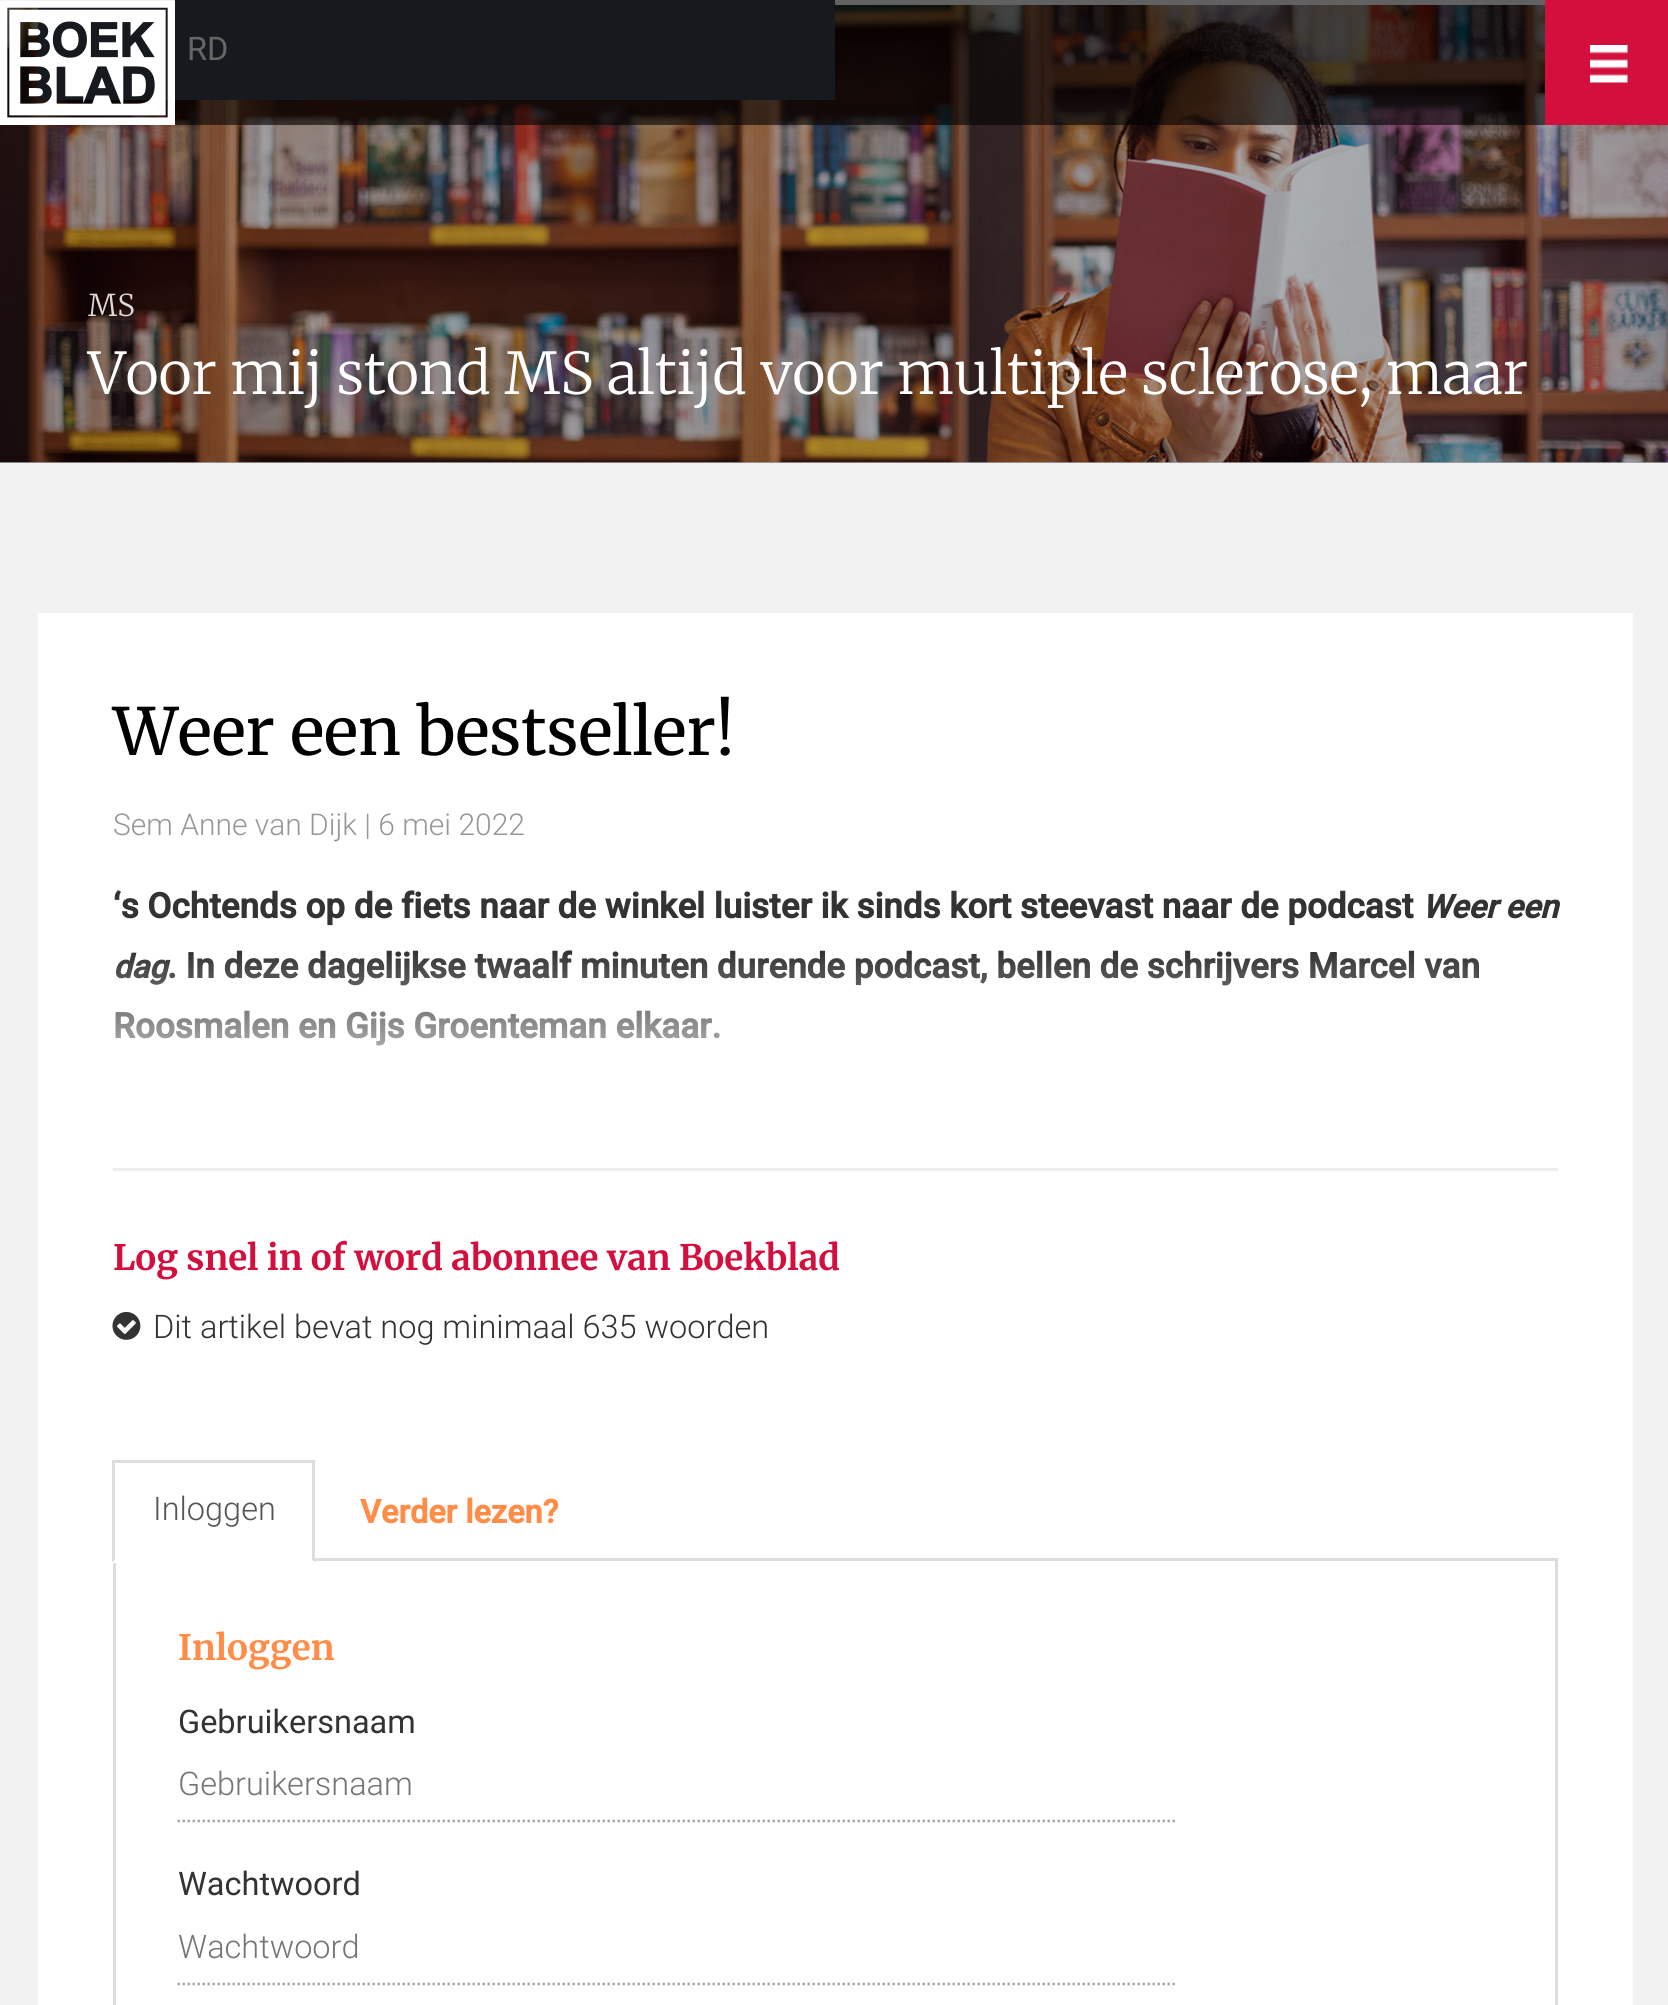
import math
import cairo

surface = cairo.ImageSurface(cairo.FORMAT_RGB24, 1668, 2005)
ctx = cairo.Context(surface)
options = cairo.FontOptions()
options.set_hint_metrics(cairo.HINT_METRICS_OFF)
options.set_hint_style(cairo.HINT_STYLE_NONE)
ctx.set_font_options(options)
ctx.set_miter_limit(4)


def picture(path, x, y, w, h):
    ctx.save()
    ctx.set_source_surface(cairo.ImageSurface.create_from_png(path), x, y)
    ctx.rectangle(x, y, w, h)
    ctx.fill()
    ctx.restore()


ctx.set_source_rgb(0.949, 0.949, 0.949)
ctx.paint()
ctx.set_source_rgb(0.651, 0.651, 0.651)
ctx.rectangle(0, 462, 1668, 1)
ctx.fill()
picture("img3.png", 0, 0, 1668, 463)
ctx.set_source_rgb(0.949, 0.949, 0.949)
ctx.rectangle(835, 0, 710, 5)
ctx.fill()
ctx.set_source_rgb(0.212, 0.251, 0.29)
ctx.rectangle(38, 0, 797, 100)
ctx.fill()
ctx.select_font_face("Roboto")
ctx.set_font_size(32.5)
ctx.set_source_rgb(1, 1, 1)
ctx.move_to(187, 60)
ctx.show_text("RD")
ctx.set_source_rgba(0, 0, 0, 0.6)
ctx.rectangle(0, 0, 1545, 125)
ctx.fill()
picture("img1.png", 0, 0, 175, 125)
ctx.set_source_rgb(0.827, 0.059, 0.243)
ctx.rectangle(1545, 0, 123, 125)
ctx.fill()
picture("img2.png", 1590, 45, 38, 38)
ctx.select_font_face("Merriweather Light")
ctx.set_font_size(30)
ctx.set_source_rgb(0.867, 0.855, 0.855)
ctx.move_to(88, 316)
ctx.show_text("MS")
ctx.set_font_size(57.5)
ctx.set_source_rgb(1, 1, 1)
ctx.move_to(88, 394)
ctx.show_text("Voor mij stond MS altijd voor multiple sclerose, maar")
ctx.rectangle(38, 613, 1595, 1392)
ctx.fill()
ctx.select_font_face("Merriweather")
ctx.set_font_size(65)
ctx.set_source_rgb(0, 0, 0)
ctx.move_to(113, 755)
ctx.show_text("Weer een bestseller!")
ctx.select_font_face("Roboto Light")
ctx.set_font_size(30)
ctx.set_source_rgb(0.592, 0.592, 0.592)
ctx.move_to(113, 835)
ctx.show_text("Sem Anne van Dijk | 6 mei 2022")
ctx.select_font_face("Roboto", cairo.FONT_SLANT_NORMAL, cairo.FONT_WEIGHT_BOLD)
ctx.set_font_size(35)
ctx.set_source_rgb(0.2, 0.2, 0.2)
ctx.move_to(113, 918)
ctx.show_text("‘s Ochtends op de fiets naar de winkel luister ik sinds kort steevast naar de podcast")
ctx.select_font_face("Roboto", cairo.FONT_SLANT_ITALIC, cairo.FONT_WEIGHT_BOLD)
ctx.set_font_size(32.5)
ctx.move_to(1422, 918)
ctx.show_text("Weer een")
ctx.move_to(113, 978)
ctx.show_text("dag")
ctx.select_font_face("Roboto", cairo.FONT_SLANT_NORMAL, cairo.FONT_WEIGHT_BOLD)
ctx.set_font_size(35)
ctx.move_to(167, 978)
ctx.show_text(". In deze dagelijkse twaalf minuten durende podcast, bellen de schrijvers Marcel van")
ctx.move_to(113, 1038)
ctx.show_text("Roosmalen en Gijs Groenteman elkaar.")
gradient = cairo.LinearGradient(835, 875, 835, 1118)
gradient.add_color_stop_rgba(0, 0, 0, 0, 0)
gradient.add_color_stop_rgba(0.31, 1, 1, 1, 0)
gradient.add_color_stop_rgba(1, 1, 1, 1, 1)
ctx.set_source(gradient)
ctx.rectangle(115, 954, 1363, 92)
ctx.fill()
ctx.set_source_rgb(0.929, 0.929, 0.929)
ctx.rectangle(113, 1168, 1445, 3)
ctx.fill()
ctx.select_font_face("Merriweather", cairo.FONT_SLANT_NORMAL, cairo.FONT_WEIGHT_BOLD)
ctx.set_source_rgb(0.827, 0.059, 0.243)
ctx.move_to(113, 1270)
ctx.show_text("Log snel in of word abonnee van Boekblad")
picture("img4.png", 112, 1312, 29, 28)
ctx.select_font_face("Roboto Light")
ctx.set_font_size(32.5)
ctx.set_source_rgb(0.2, 0.2, 0.2)
ctx.move_to(153, 1338)
ctx.show_text("Dit artikel bevat nog minimaal 635 woorden")
ctx.set_source_rgb(0.867, 0.867, 0.867)
ctx.rectangle(315, 1558, 1243, 3)
ctx.fill()
ctx.rectangle(113, 1560, 3, 445)
ctx.fill()
ctx.set_source_rgb(1, 1, 1)
ctx.rectangle(113, 1560, 3, 3)
ctx.fill()
ctx.set_source_rgb(0.867, 0.867, 0.867)
ctx.rectangle(113, 1460, 202, 3)
ctx.fill()
ctx.new_path()
ctx.move_to(315, 1460)
ctx.line_to(315, 1562)
ctx.line_to(312, 1560)
ctx.line_to(312, 1462)
ctx.close_path()
ctx.fill()
ctx.new_path()
ctx.move_to(112, 1562)
ctx.line_to(112, 1460)
ctx.line_to(115, 1462)
ctx.line_to(115, 1560)
ctx.close_path()
ctx.fill()
ctx.set_source_rgb(0.333, 0.333, 0.333)
ctx.move_to(153, 1520)
ctx.show_text("Inloggen")
ctx.select_font_face("Roboto", cairo.FONT_SLANT_NORMAL, cairo.FONT_WEIGHT_BOLD)
ctx.set_source_rgb(1, 0.549, 0.278)
ctx.move_to(360, 1523)
ctx.show_text("Verder lezen?")
ctx.set_source_rgb(0.867, 0.867, 0.867)
ctx.rectangle(1555, 1560, 3, 445)
ctx.fill()
ctx.select_font_face("Merriweather", cairo.FONT_SLANT_NORMAL, cairo.FONT_WEIGHT_BOLD)
ctx.set_font_size(35)
ctx.set_source_rgb(1, 0.549, 0.278)
ctx.move_to(178, 1660)
ctx.show_text("Inloggen")
ctx.select_font_face("Roboto")
ctx.set_font_size(32.5)
ctx.set_source_rgb(0.2, 0.2, 0.2)
ctx.move_to(178, 1733)
ctx.show_text("Gebruikersnaam")
ctx.new_path()
ctx.move_to(177.5, 1821)
ctx.line_to(1177.5, 1821)
ctx.set_source_rgb(0.655, 0.655, 0.655)
ctx.set_line_width(2.5)
ctx.set_dash([2.5, 2.5])
ctx.stroke()
ctx.select_font_face("Roboto Light")
ctx.set_source_rgb(0.459, 0.459, 0.459)
ctx.move_to(178, 1795)
ctx.show_text("Gebruikersnaam")
ctx.select_font_face("Roboto")
ctx.set_source_rgb(0.2, 0.2, 0.2)
ctx.move_to(178, 1895)
ctx.show_text("Wachtwoord")
ctx.new_path()
ctx.move_to(177.5, 1984)
ctx.line_to(1177.5, 1984)
ctx.set_source_rgb(0.655, 0.655, 0.655)
ctx.stroke()
ctx.select_font_face("Roboto Light")
ctx.set_source_rgb(0.459, 0.459, 0.459)
ctx.move_to(178, 1958)
ctx.show_text("Wachtwoord")
surface.write_to_png("page.png")
